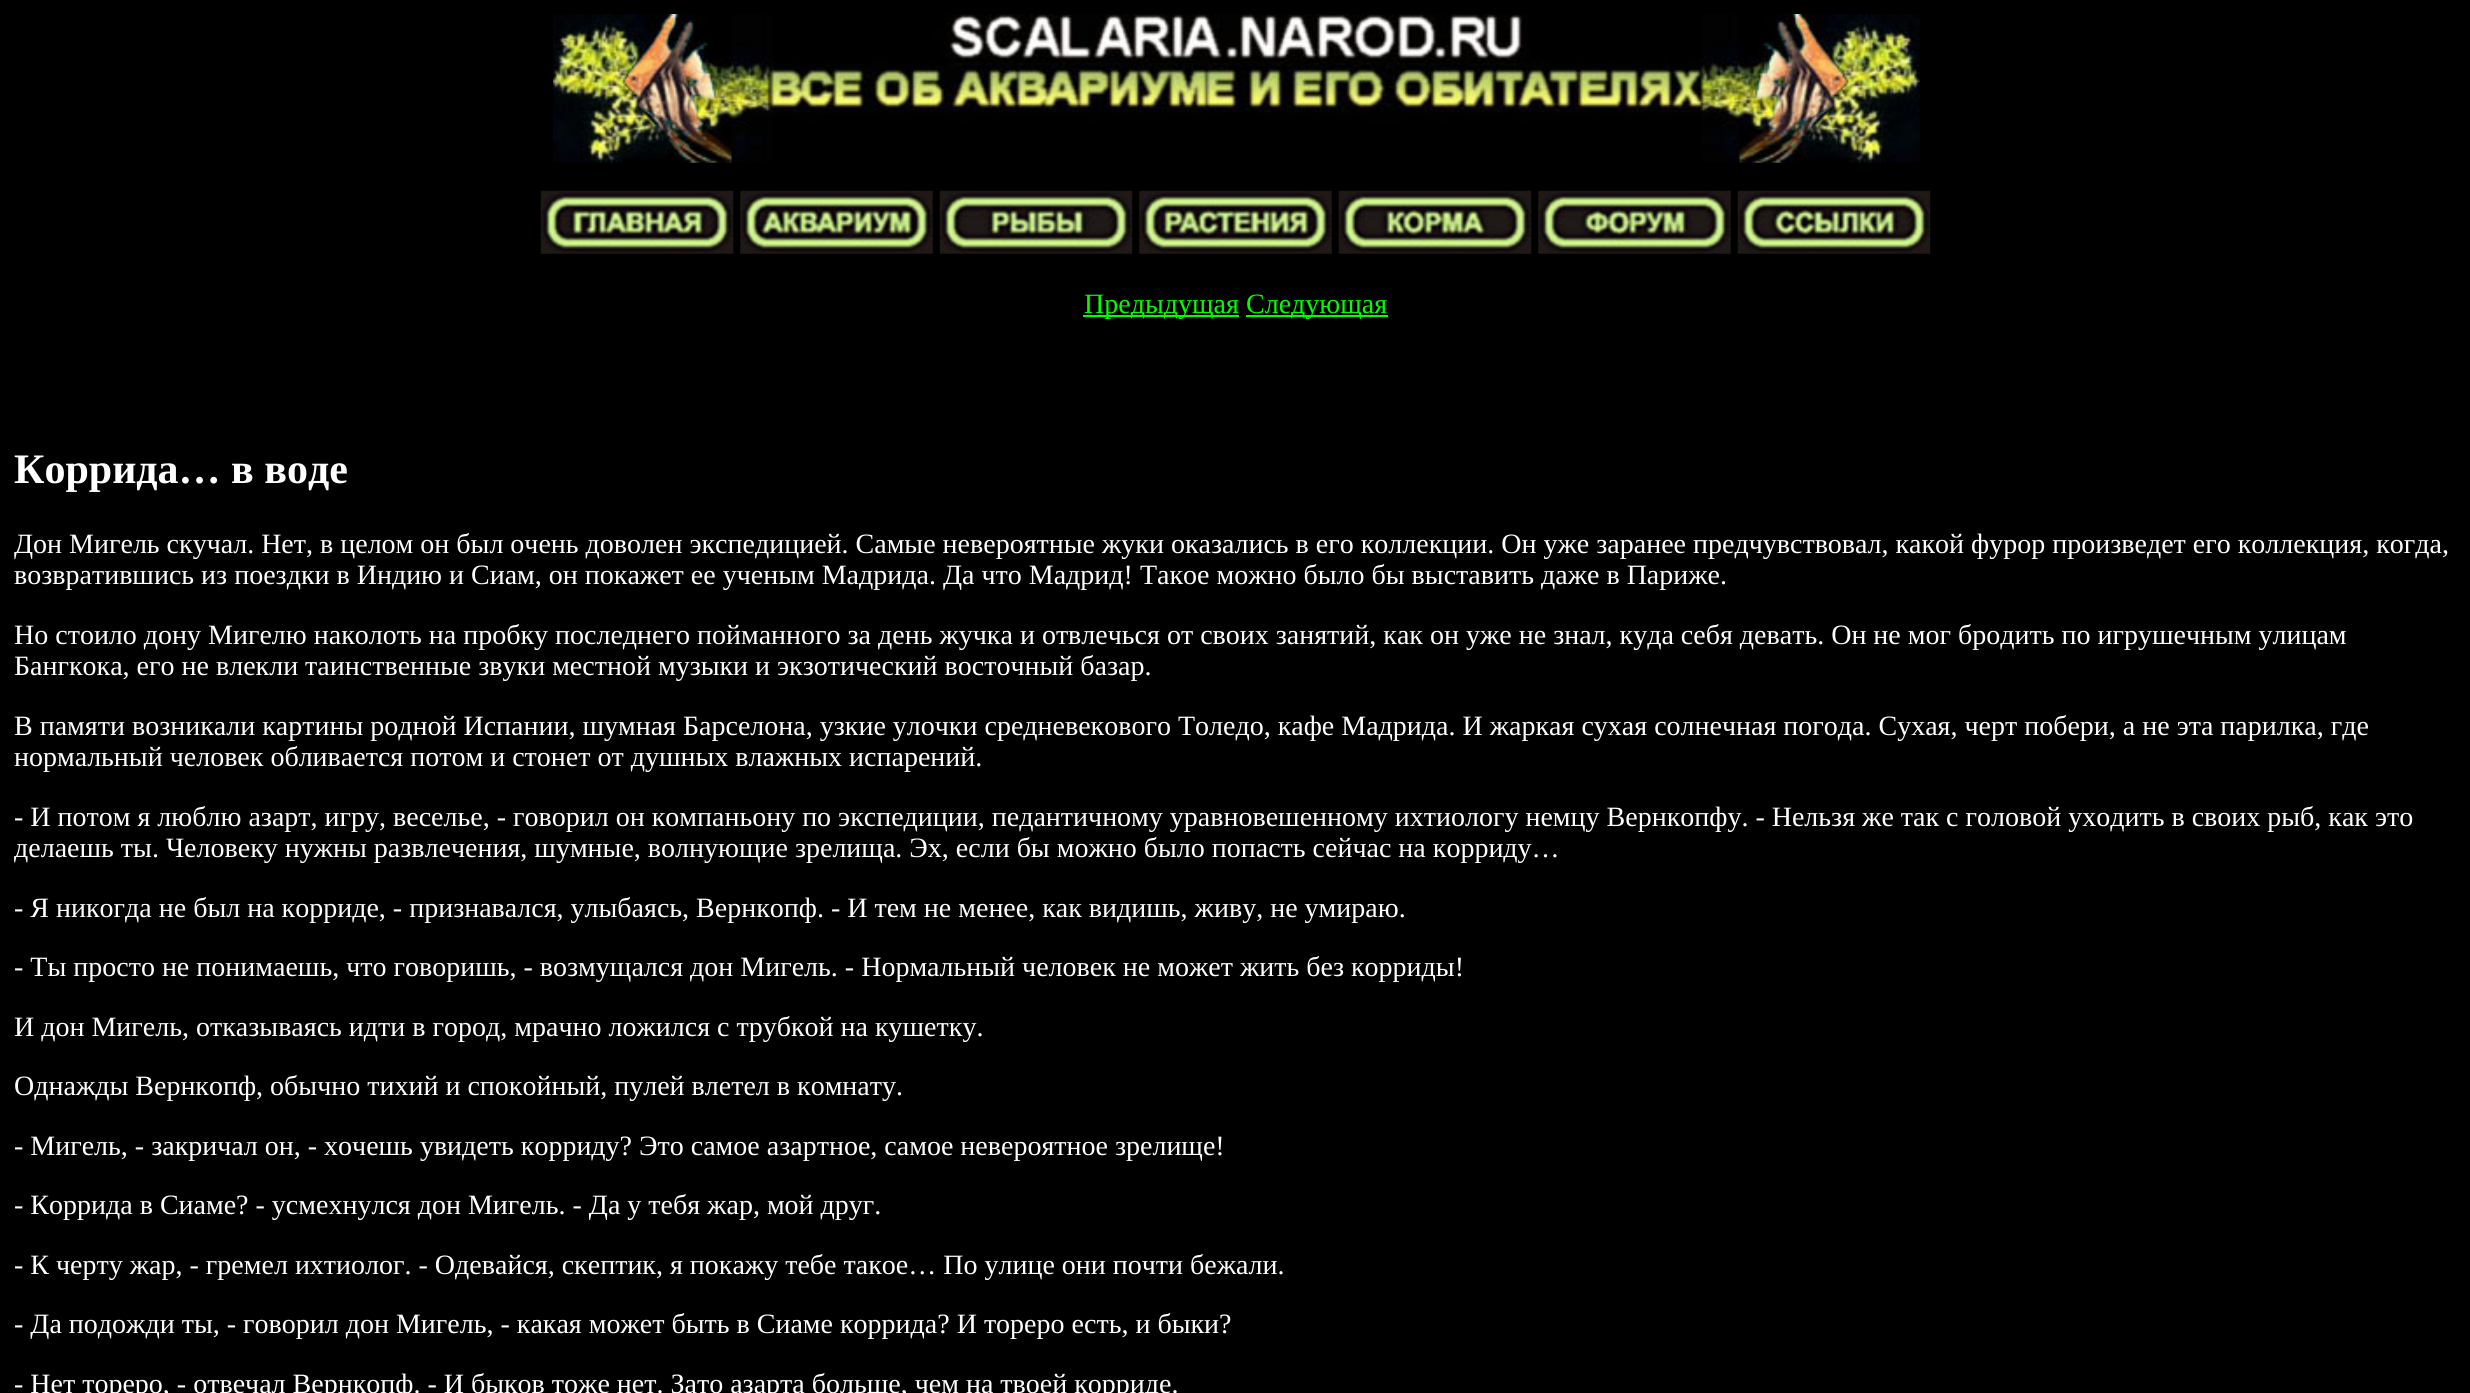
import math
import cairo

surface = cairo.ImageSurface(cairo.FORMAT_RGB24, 2470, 1393)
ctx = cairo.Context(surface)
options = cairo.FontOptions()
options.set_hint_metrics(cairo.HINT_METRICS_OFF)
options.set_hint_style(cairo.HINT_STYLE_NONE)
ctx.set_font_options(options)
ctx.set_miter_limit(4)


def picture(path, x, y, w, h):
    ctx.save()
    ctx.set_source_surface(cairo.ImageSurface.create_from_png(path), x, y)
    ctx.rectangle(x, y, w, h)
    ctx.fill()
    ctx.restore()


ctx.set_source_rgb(0, 0, 0)
ctx.paint()
picture("img1.png", 553, 14, 1367, 149)
picture("img2.png", 540, 190, 194, 64)
picture("img3.png", 740, 190, 193, 64)
picture("img4.png", 939, 190, 194, 64)
picture("img5.png", 1139, 190, 193, 64)
picture("img6.png", 1338, 190, 194, 64)
picture("img7.png", 1538, 190, 193, 64)
picture("img8.png", 1737, 190, 194, 64)
ctx.set_source_rgb(0, 1, 0)
ctx.rectangle(1083, 315, 156, 2)
ctx.fill()
ctx.select_font_face("Liberation Serif")
ctx.set_font_size(28)
ctx.move_to(1084, 313)
ctx.show_text("Предыдущая")
ctx.rectangle(1246, 315, 142, 2)
ctx.fill()
ctx.move_to(1246, 313)
ctx.show_text("Следующая")
ctx.select_font_face("Liberation Serif", cairo.FONT_SLANT_NORMAL, cairo.FONT_WEIGHT_BOLD)
ctx.set_font_size(42)
ctx.set_source_rgb(1, 1, 1)
ctx.move_to(14, 483)
ctx.show_text("Коррида… в воде")
ctx.select_font_face("Liberation Serif")
ctx.set_font_size(28)
ctx.move_to(14, 553)
ctx.show_text("Дон Мигель скучал. Нет, в целом он был очень доволен экспедицией. Самые невероятные жуки оказались в его коллекции. Он уже заранее предчувствовал, какой фурор произведет его коллекция, когда,")
ctx.move_to(14, 584)
ctx.show_text("возвратившись из поездки в Индию и Сиам, он покажет ее ученым Мадрида. Да что Мадрид! Такое можно было бы выставить даже в Париже.")
ctx.move_to(14, 644)
ctx.show_text("Но стоило дону Мигелю наколоть на пробку последнего пойманного за день жучка и отвлечься от своих занятий, как он уже не знал, куда себя девать. Он не мог бродить по игрушечным улицам")
ctx.move_to(14, 675)
ctx.show_text("Бангкока, его не влекли таинственные звуки местной музыки и экзотический восточный базар.")
ctx.move_to(14, 735)
ctx.show_text("В памяти возникали картины родной Испании, шумная Барселона, узкие улочки средневекового Толедо, кафе Мадрида. И жаркая сухая солнечная погода. Сухая, черт побери, а не эта парилка, где")
ctx.move_to(14, 766)
ctx.show_text("нормальный человек обливается потом и стонет от душных влажных испарений.")
ctx.move_to(14, 826)
ctx.show_text("- И потом я люблю азарт, игру, веселье, - говорил он компаньону по экспедиции, педантичному уравновешенному ихтиологу немцу Вернкопфу. - Нельзя же так с головой уходить в своих рыб, как это")
ctx.move_to(14, 857)
ctx.show_text("делаешь ты. Человеку нужны развлечения, шумные, волнующие зрелища. Эх, если бы можно было попасть сейчас на корриду…")
ctx.move_to(14, 917)
ctx.show_text("- Я никогда не был на корриде, - признавался, улыбаясь, Вернкопф. - И тем не менее, как видишь, живу, не умираю.")
ctx.move_to(14, 976)
ctx.show_text("- Ты просто не понимаешь, что говоришь, - возмущался дон Мигель. - Нормальный человек не может жить без корриды!")
ctx.move_to(14, 1036)
ctx.show_text("И дон Мигель, отказываясь идти в город, мрачно ложился с трубкой на кушетку.")
ctx.move_to(14, 1095)
ctx.show_text("Однажды Вернкопф, обычно тихий и спокойный, пулей влетел в комнату.")
ctx.move_to(14, 1155)
ctx.show_text("- Мигель, - закричал он, - хочешь увидеть корриду? Это самое азартное, самое невероятное зрелище!")
ctx.move_to(14, 1214)
ctx.show_text("- Коррида в Сиаме? - усмехнулся дон Мигель. - Да у тебя жар, мой друг.")
ctx.move_to(14, 1274)
ctx.show_text("- К черту жар, - гремел ихтиолог. - Одевайся, скептик, я покажу тебе такое… По улице они почти бежали.")
ctx.move_to(14, 1333)
ctx.show_text("- Да подожди ты, - говорил дон Мигель, - какая может быть в Сиаме коррида? И тореро есть, и быки?")
ctx.move_to(14, 1393)
ctx.show_text("- Нет тореро, - отвечал Вернкопф. - И быков тоже нет. Зато азарта больше, чем на твоей корриде.")
surface.write_to_png("page.png")
